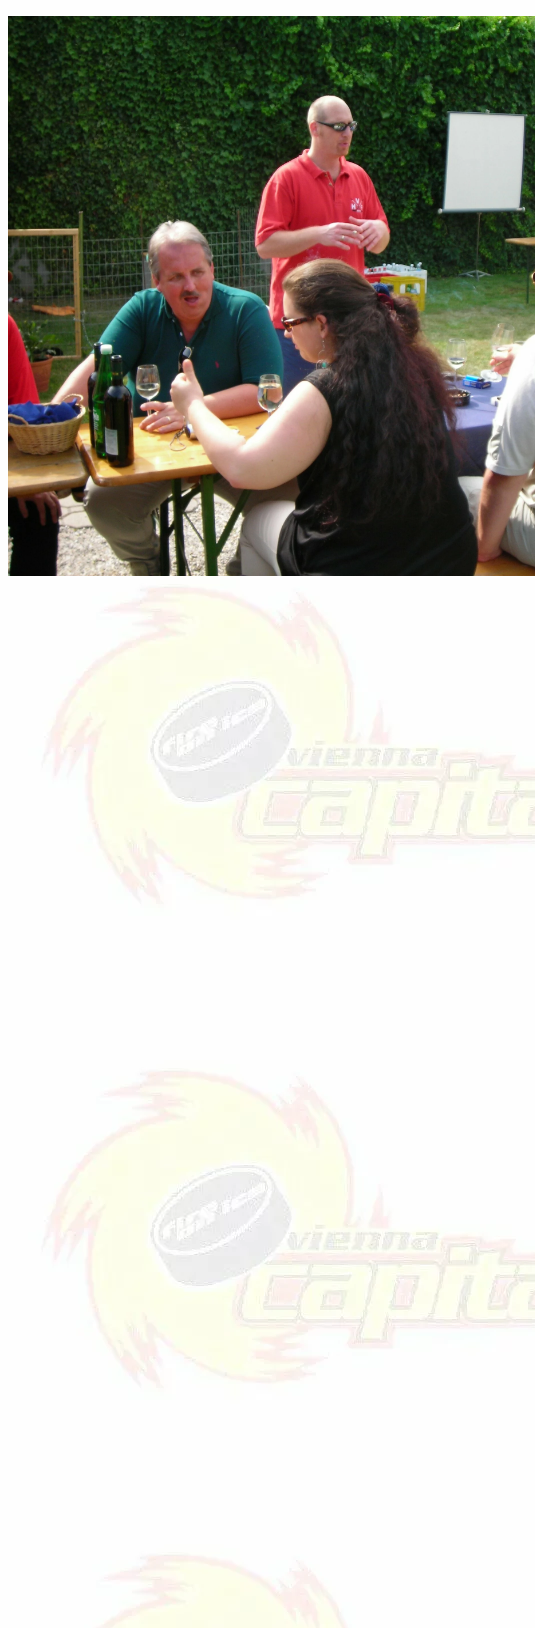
import math
import cairo

surface = cairo.ImageSurface(cairo.FORMAT_RGB24, 535, 1628)
ctx = cairo.Context(surface)
options = cairo.FontOptions()
options.set_hint_metrics(cairo.HINT_METRICS_OFF)
options.set_hint_style(cairo.HINT_STYLE_NONE)
ctx.set_font_options(options)
ctx.set_miter_limit(4)


def picture(path, x, y, w, h):
    ctx.save()
    ctx.set_source_surface(cairo.ImageSurface.create_from_png(path), x, y)
    ctx.rectangle(x, y, w, h)
    ctx.fill()
    ctx.restore()


ctx.set_source_rgb(1, 1, 1)
ctx.paint()
picture("img1.png", 0, 0, 535, 1628)
picture("img2.png", 8, 16, 527, 560)
surface.write_to_png("page.png")
